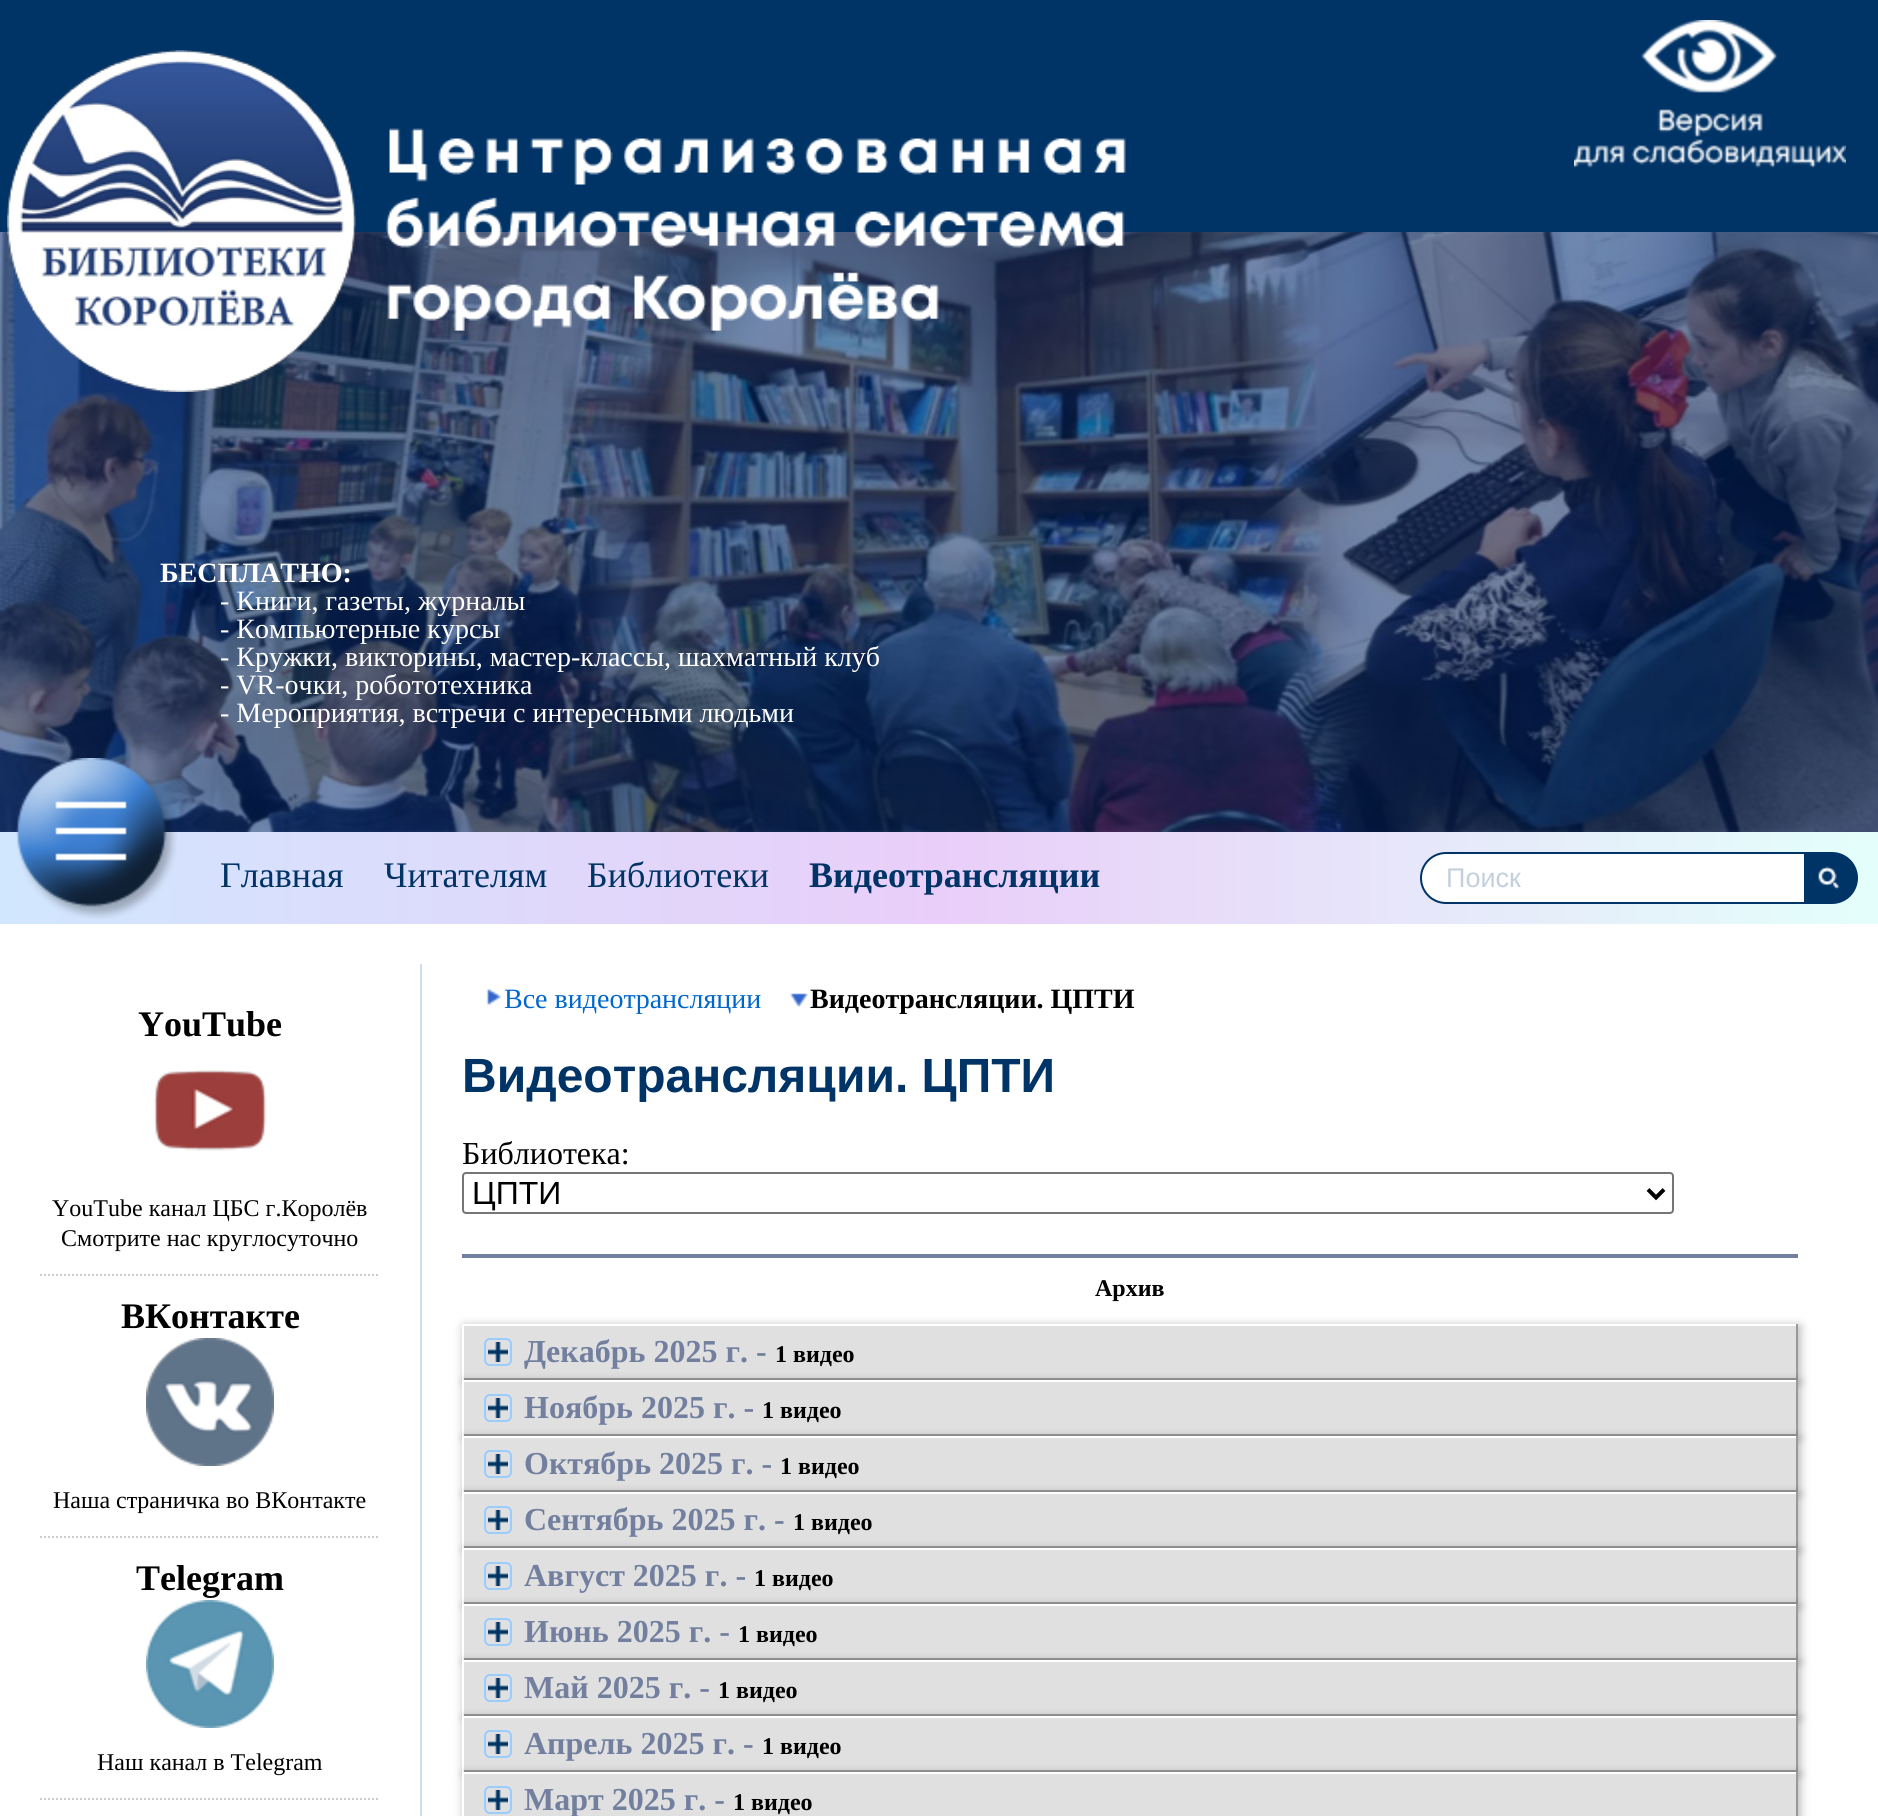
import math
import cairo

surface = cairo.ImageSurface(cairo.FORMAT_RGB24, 1878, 1816)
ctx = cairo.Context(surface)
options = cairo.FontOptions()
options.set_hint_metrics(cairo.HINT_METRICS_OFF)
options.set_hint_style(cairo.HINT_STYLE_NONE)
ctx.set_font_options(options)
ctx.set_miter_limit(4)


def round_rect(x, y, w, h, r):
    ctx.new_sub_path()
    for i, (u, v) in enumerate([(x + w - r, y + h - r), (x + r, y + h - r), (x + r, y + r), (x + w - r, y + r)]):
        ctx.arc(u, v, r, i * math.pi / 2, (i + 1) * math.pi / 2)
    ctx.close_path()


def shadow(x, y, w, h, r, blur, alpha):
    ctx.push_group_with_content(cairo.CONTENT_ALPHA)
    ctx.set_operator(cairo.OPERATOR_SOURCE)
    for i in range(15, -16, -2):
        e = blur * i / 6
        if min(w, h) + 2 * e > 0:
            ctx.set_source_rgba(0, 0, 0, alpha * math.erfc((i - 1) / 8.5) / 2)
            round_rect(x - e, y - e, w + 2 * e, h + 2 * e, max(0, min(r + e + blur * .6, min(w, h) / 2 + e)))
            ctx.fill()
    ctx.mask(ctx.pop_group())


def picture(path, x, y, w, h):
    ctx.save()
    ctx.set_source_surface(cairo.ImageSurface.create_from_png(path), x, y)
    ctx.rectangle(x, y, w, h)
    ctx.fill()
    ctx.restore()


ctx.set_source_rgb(1, 1, 1)
ctx.paint()
ctx.set_source_rgb(0, 0.2, 0.4)
ctx.rectangle(0, 0, 1878, 232)
ctx.fill()
picture("img3.png", 0, 232, 1878, 600)
picture("img1.png", 7, 50, 1119, 342)
picture("img2.png", 1574, 20, 272, 148)
ctx.select_font_face("Liberation Serif", cairo.FONT_SLANT_NORMAL, cairo.FONT_WEIGHT_BOLD)
ctx.set_font_size(28)
ctx.set_source_rgb(1, 1, 1)
ctx.move_to(160, 582)
ctx.show_text("БЕСПЛАТНО:")
ctx.select_font_face("Liberation Serif")
ctx.move_to(220, 610)
ctx.show_text("- Книги, газеты, журналы")
ctx.move_to(220, 638)
ctx.show_text("- Компьютерные курсы")
ctx.move_to(220, 666)
ctx.show_text("- Кружки, викторины, мастер-классы, шахматный клуб")
ctx.move_to(220, 694)
ctx.show_text("- VR-очки, робототехника")
ctx.move_to(220, 722)
ctx.show_text("- Мероприятия, встречи с интересными людьми")
gradient = cairo.LinearGradient(0, 878, 1878, 878)
gradient.add_color_stop_rgba(0, 0.82, 0.906, 0.996, 1)
gradient.add_color_stop_rgba(0.5, 0.914, 0.808, 0.976, 1)
gradient.add_color_stop_rgba(1, 0.894, 1, 0.984, 1)
ctx.set_source(gradient)
ctx.rectangle(0, 832, 1878, 92)
ctx.fill()
picture("img4.png", 16, 758, 161, 161)
ctx.set_font_size(36)
ctx.set_source_rgb(0, 0.2, 0.4)
ctx.move_to(220, 887)
ctx.show_text("Главная")
ctx.move_to(384, 887)
ctx.show_text("Читателям")
ctx.move_to(587, 887)
ctx.show_text("Библиотеки")
ctx.select_font_face("Liberation Serif", cairo.FONT_SLANT_NORMAL, cairo.FONT_WEIGHT_BOLD)
ctx.move_to(809, 887)
ctx.show_text("Видеотрансляции")
ctx.set_source_rgb(1, 1, 1)
round_rect(1421, 853, 436, 50, 25)
ctx.fill_preserve()
ctx.set_source_rgb(0, 0.2, 0.4)
ctx.stroke()
ctx.select_font_face("Liberation Sans")
ctx.set_font_size(27)
ctx.set_source_rgb(0.769, 0.812, 0.871)
ctx.move_to(1446, 887)
ctx.show_text("Поиск")
ctx.set_source_rgb(0, 0.2, 0.4)
ctx.new_path()
ctx.move_to(1804, 854)
ctx.line_to(1836, 854)
ctx.curve_to(1847, 854, 1856, 863, 1856, 874)
ctx.line_to(1856, 882)
ctx.curve_to(1856, 893, 1847, 902, 1836, 902)
ctx.line_to(1804, 902)
ctx.close_path()
ctx.fill()
picture("img5.png", 1818, 866, 22, 24)
ctx.set_source_rgb(0.8, 0.867, 0.933)
ctx.rectangle(420, 964, 2, 852)
ctx.fill()
ctx.new_path()
ctx.move_to(40, 1275)
ctx.line_to(380, 1275)
ctx.set_source_rgb(0.8, 0.8, 0.8)
ctx.set_dash([2, 2])
ctx.stroke()
ctx.select_font_face("Liberation Serif", cairo.FONT_SLANT_NORMAL, cairo.FONT_WEIGHT_BOLD)
ctx.set_font_size(36)
ctx.set_source_rgb(0, 0, 0)
ctx.move_to(138, 1036)
ctx.show_text("YouTube")
picture("img6.png", 154, 1070, 113, 81)
ctx.select_font_face("Liberation Serif")
ctx.set_font_size(24)
ctx.move_to(52, 1216)
ctx.show_text("YouTube канал ЦБС г.Королёв")
ctx.move_to(61, 1246)
ctx.show_text("Смотрите нас круглосуточно")
ctx.new_path()
ctx.move_to(40, 1537)
ctx.line_to(380, 1537)
ctx.set_source_rgb(0.8, 0.8, 0.8)
ctx.stroke()
ctx.select_font_face("Liberation Serif", cairo.FONT_SLANT_NORMAL, cairo.FONT_WEIGHT_BOLD)
ctx.set_font_size(36)
ctx.set_source_rgb(0, 0, 0)
ctx.move_to(121, 1328)
ctx.show_text("ВКонтакте")
picture("img7.png", 146, 1338, 128, 128)
ctx.select_font_face("Liberation Serif")
ctx.set_font_size(24)
ctx.move_to(53, 1508)
ctx.show_text("Наша страничка во ВКонтакте")
ctx.new_path()
ctx.move_to(40, 1799)
ctx.line_to(380, 1799)
ctx.set_source_rgb(0.8, 0.8, 0.8)
ctx.stroke()
ctx.select_font_face("Liberation Serif", cairo.FONT_SLANT_NORMAL, cairo.FONT_WEIGHT_BOLD)
ctx.set_font_size(36)
ctx.set_source_rgb(0, 0, 0)
ctx.move_to(136, 1590)
ctx.show_text("Telegram")
picture("img8.png", 146, 1600, 128, 128)
ctx.select_font_face("Liberation Serif")
ctx.set_font_size(24)
ctx.move_to(97, 1770)
ctx.show_text("Наш канал в Telegram")
picture("img9.png", 486, 988, 15, 18)
ctx.set_font_size(28)
ctx.set_source_rgb(0, 0.4, 0.8)
ctx.move_to(504, 1008)
ctx.show_text("Все видеотрансляции")
picture("img10.png", 789, 993, 20, 14)
ctx.select_font_face("Liberation Serif", cairo.FONT_SLANT_NORMAL, cairo.FONT_WEIGHT_BOLD)
ctx.set_source_rgb(0, 0, 0)
ctx.move_to(810, 1008)
ctx.show_text("Видеотрансляции. ЦПТИ")
ctx.select_font_face("Liberation Sans", cairo.FONT_SLANT_NORMAL, cairo.FONT_WEIGHT_BOLD)
ctx.set_font_size(48)
ctx.set_source_rgb(0, 0.2, 0.4)
ctx.move_to(462, 1092)
ctx.show_text("Видеотрансляции. ЦПТИ")
ctx.select_font_face("Liberation Serif")
ctx.set_font_size(32)
ctx.set_source_rgb(0, 0, 0)
ctx.move_to(462, 1164)
ctx.show_text("Библиотека:")
round_rect(463, 1173, 1210, 40, 3)
ctx.set_source_rgb(0.463, 0.463, 0.463)
ctx.set_dash([])
ctx.stroke()
ctx.new_path()
ctx.move_to(1648, 1189.5)
ctx.line_to(1656, 1197.5)
ctx.line_to(1664, 1189.5)
ctx.set_source_rgb(0, 0, 0)
ctx.set_line_width(4)
ctx.stroke()
ctx.select_font_face("Liberation Sans")
ctx.move_to(472, 1204)
ctx.show_text("ЦПТИ")
ctx.set_source_rgb(0.447, 0.498, 0.62)
ctx.rectangle(462, 1254, 1336, 4)
ctx.fill()
ctx.select_font_face("Liberation Serif", cairo.FONT_SLANT_NORMAL, cairo.FONT_WEIGHT_BOLD)
ctx.set_font_size(24)
ctx.set_source_rgb(0, 0, 0)
ctx.move_to(1095, 1296)
ctx.show_text("Архив")
ctx.set_source_rgb(0, 0, 0)
shadow(464, 1326, 1336, 56, 0, 5, 0.3)
ctx.set_source_rgb(0.878, 0.878, 0.878)
ctx.rectangle(464, 1326, 1332, 52)
ctx.fill()
ctx.set_source_rgb(1, 1, 1)
ctx.rectangle(462, 1324, 1336, 2)
ctx.fill()
ctx.set_source_rgb(0.6, 0.6, 0.6)
ctx.rectangle(1796, 1324, 2, 56)
ctx.fill()
ctx.rectangle(462, 1378, 1336, 2)
ctx.fill()
ctx.set_source_rgb(1, 1, 1)
ctx.rectangle(462, 1324, 2, 56)
ctx.fill()
round_rect(485, 1339, 26, 26, 5)
ctx.set_source_rgb(0.6, 0.8, 1)
ctx.set_line_width(2)
ctx.stroke()
ctx.set_source_rgb(0, 0, 0)
shadow(464, 1382, 1336, 56, 0, 5, 0.3)
ctx.set_font_size(32)
ctx.set_source_rgb(0.447, 0.498, 0.62)
ctx.move_to(524, 1362)
ctx.show_text("Декабрь 2025 г. -")
picture("img11.png", 488, 1342, 20, 20)
ctx.set_font_size(24)
ctx.set_source_rgb(0, 0, 0)
ctx.move_to(775, 1362)
ctx.show_text("1 видео")
ctx.set_source_rgb(0.878, 0.878, 0.878)
ctx.rectangle(464, 1382, 1332, 52)
ctx.fill()
ctx.set_source_rgb(1, 1, 1)
ctx.rectangle(462, 1380, 1336, 2)
ctx.fill()
ctx.set_source_rgb(0.6, 0.6, 0.6)
ctx.rectangle(1796, 1380, 2, 56)
ctx.fill()
ctx.rectangle(462, 1434, 1336, 2)
ctx.fill()
ctx.set_source_rgb(1, 1, 1)
ctx.rectangle(462, 1380, 2, 56)
ctx.fill()
round_rect(485, 1395, 26, 26, 5)
ctx.set_source_rgb(0.6, 0.8, 1)
ctx.stroke()
ctx.set_source_rgb(0, 0, 0)
shadow(464, 1438, 1336, 56, 0, 5, 0.3)
ctx.set_font_size(32)
ctx.set_source_rgb(0.447, 0.498, 0.62)
ctx.move_to(524, 1418)
ctx.show_text("Ноябрь 2025 г. -")
picture("img11.png", 488, 1398, 20, 20)
ctx.set_font_size(24)
ctx.set_source_rgb(0, 0, 0)
ctx.move_to(762, 1418)
ctx.show_text("1 видео")
ctx.set_source_rgb(0.878, 0.878, 0.878)
ctx.rectangle(464, 1438, 1332, 52)
ctx.fill()
ctx.set_source_rgb(1, 1, 1)
ctx.rectangle(462, 1436, 1336, 2)
ctx.fill()
ctx.set_source_rgb(0.6, 0.6, 0.6)
ctx.rectangle(1796, 1436, 2, 56)
ctx.fill()
ctx.rectangle(462, 1490, 1336, 2)
ctx.fill()
ctx.set_source_rgb(1, 1, 1)
ctx.rectangle(462, 1436, 2, 56)
ctx.fill()
round_rect(485, 1451, 26, 26, 5)
ctx.set_source_rgb(0.6, 0.8, 1)
ctx.stroke()
ctx.set_source_rgb(0, 0, 0)
shadow(464, 1494, 1336, 56, 0, 5, 0.3)
ctx.set_font_size(32)
ctx.set_source_rgb(0.447, 0.498, 0.62)
ctx.move_to(524, 1474)
ctx.show_text("Октябрь 2025 г. -")
picture("img11.png", 488, 1454, 20, 20)
ctx.set_font_size(24)
ctx.set_source_rgb(0, 0, 0)
ctx.move_to(780, 1474)
ctx.show_text("1 видео")
ctx.set_source_rgb(0.878, 0.878, 0.878)
ctx.rectangle(464, 1494, 1332, 52)
ctx.fill()
ctx.set_source_rgb(1, 1, 1)
ctx.rectangle(462, 1492, 1336, 2)
ctx.fill()
ctx.set_source_rgb(0.6, 0.6, 0.6)
ctx.rectangle(1796, 1492, 2, 56)
ctx.fill()
ctx.rectangle(462, 1546, 1336, 2)
ctx.fill()
ctx.set_source_rgb(1, 1, 1)
ctx.rectangle(462, 1492, 2, 56)
ctx.fill()
round_rect(485, 1507, 26, 26, 5)
ctx.set_source_rgb(0.6, 0.8, 1)
ctx.stroke()
ctx.set_source_rgb(0, 0, 0)
shadow(464, 1550, 1336, 56, 0, 5, 0.3)
ctx.set_font_size(32)
ctx.set_source_rgb(0.447, 0.498, 0.62)
ctx.move_to(524, 1530)
ctx.show_text("Сентябрь 2025 г. -")
picture("img11.png", 488, 1510, 20, 20)
ctx.set_font_size(24)
ctx.set_source_rgb(0, 0, 0)
ctx.move_to(793, 1530)
ctx.show_text("1 видео")
ctx.set_source_rgb(0.878, 0.878, 0.878)
ctx.rectangle(464, 1550, 1332, 52)
ctx.fill()
ctx.set_source_rgb(1, 1, 1)
ctx.rectangle(462, 1548, 1336, 2)
ctx.fill()
ctx.set_source_rgb(0.6, 0.6, 0.6)
ctx.rectangle(1796, 1548, 2, 56)
ctx.fill()
ctx.rectangle(462, 1602, 1336, 2)
ctx.fill()
ctx.set_source_rgb(1, 1, 1)
ctx.rectangle(462, 1548, 2, 56)
ctx.fill()
round_rect(485, 1563, 26, 26, 5)
ctx.set_source_rgb(0.6, 0.8, 1)
ctx.stroke()
ctx.set_source_rgb(0, 0, 0)
shadow(464, 1606, 1336, 56, 0, 5, 0.3)
ctx.set_font_size(32)
ctx.set_source_rgb(0.447, 0.498, 0.62)
ctx.move_to(524, 1586)
ctx.show_text("Август 2025 г. -")
picture("img11.png", 488, 1566, 20, 20)
ctx.set_font_size(24)
ctx.set_source_rgb(0, 0, 0)
ctx.move_to(754, 1586)
ctx.show_text("1 видео")
ctx.set_source_rgb(0.878, 0.878, 0.878)
ctx.rectangle(464, 1606, 1332, 52)
ctx.fill()
ctx.set_source_rgb(1, 1, 1)
ctx.rectangle(462, 1604, 1336, 2)
ctx.fill()
ctx.set_source_rgb(0.6, 0.6, 0.6)
ctx.rectangle(1796, 1604, 2, 56)
ctx.fill()
ctx.rectangle(462, 1658, 1336, 2)
ctx.fill()
ctx.set_source_rgb(1, 1, 1)
ctx.rectangle(462, 1604, 2, 56)
ctx.fill()
round_rect(485, 1619, 26, 26, 5)
ctx.set_source_rgb(0.6, 0.8, 1)
ctx.stroke()
ctx.set_font_size(32)
ctx.set_source_rgb(0.447, 0.498, 0.62)
ctx.move_to(524, 1642)
ctx.show_text("Июнь 2025 г. -")
picture("img11.png", 488, 1622, 20, 20)
ctx.set_source_rgb(0, 0, 0)
shadow(464, 1662, 1336, 56, 0, 5, 0.3)
ctx.set_font_size(24)
ctx.set_source_rgb(0, 0, 0)
ctx.move_to(738, 1642)
ctx.show_text("1 видео")
ctx.set_source_rgb(0.878, 0.878, 0.878)
ctx.rectangle(464, 1662, 1332, 52)
ctx.fill()
ctx.set_source_rgb(1, 1, 1)
ctx.rectangle(462, 1660, 1336, 2)
ctx.fill()
ctx.set_source_rgb(0.6, 0.6, 0.6)
ctx.rectangle(1796, 1660, 2, 56)
ctx.fill()
ctx.rectangle(462, 1714, 1336, 2)
ctx.fill()
ctx.set_source_rgb(1, 1, 1)
ctx.rectangle(462, 1660, 2, 56)
ctx.fill()
round_rect(485, 1675, 26, 26, 5)
ctx.set_source_rgb(0.6, 0.8, 1)
ctx.stroke()
ctx.set_font_size(32)
ctx.set_source_rgb(0.447, 0.498, 0.62)
ctx.move_to(524, 1698)
ctx.show_text("Май 2025 г. -")
picture("img11.png", 488, 1678, 20, 20)
ctx.set_source_rgb(0, 0, 0)
shadow(464, 1718, 1336, 56, 0, 5, 0.3)
ctx.set_font_size(24)
ctx.set_source_rgb(0, 0, 0)
ctx.move_to(718, 1698)
ctx.show_text("1 видео")
ctx.set_source_rgb(0.878, 0.878, 0.878)
ctx.rectangle(464, 1718, 1332, 52)
ctx.fill()
ctx.set_source_rgb(1, 1, 1)
ctx.rectangle(462, 1716, 1336, 2)
ctx.fill()
ctx.set_source_rgb(0.6, 0.6, 0.6)
ctx.rectangle(1796, 1716, 2, 56)
ctx.fill()
ctx.rectangle(462, 1770, 1336, 2)
ctx.fill()
ctx.set_source_rgb(1, 1, 1)
ctx.rectangle(462, 1716, 2, 56)
ctx.fill()
round_rect(485, 1731, 26, 26, 5)
ctx.set_source_rgb(0.6, 0.8, 1)
ctx.stroke()
ctx.set_source_rgb(0, 0, 0)
shadow(464, 1774, 1336, 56, 0, 5, 0.3)
ctx.set_font_size(32)
ctx.set_source_rgb(0.447, 0.498, 0.62)
ctx.move_to(524, 1754)
ctx.show_text("Апрель 2025 г. -")
picture("img11.png", 488, 1734, 20, 20)
ctx.set_font_size(24)
ctx.set_source_rgb(0, 0, 0)
ctx.move_to(762, 1754)
ctx.show_text("1 видео")
ctx.set_source_rgb(0.878, 0.878, 0.878)
ctx.rectangle(464, 1774, 1332, 42)
ctx.fill()
ctx.set_source_rgb(1, 1, 1)
ctx.rectangle(462, 1772, 1336, 2)
ctx.fill()
ctx.set_source_rgb(0.6, 0.6, 0.6)
ctx.rectangle(1796, 1772, 2, 44)
ctx.fill()
ctx.set_source_rgb(1, 1, 1)
ctx.rectangle(462, 1772, 2, 44)
ctx.fill()
round_rect(485, 1787, 26, 26, 5)
ctx.set_source_rgb(0.6, 0.8, 1)
ctx.stroke()
ctx.set_font_size(32)
ctx.set_source_rgb(0.447, 0.498, 0.62)
ctx.move_to(524, 1810)
ctx.show_text("Март 2025 г. -")
picture("img11.png", 488, 1790, 20, 20)
ctx.set_font_size(24)
ctx.set_source_rgb(0, 0, 0)
ctx.move_to(733, 1810)
ctx.show_text("1 видео")
surface.write_to_png("page.png")
